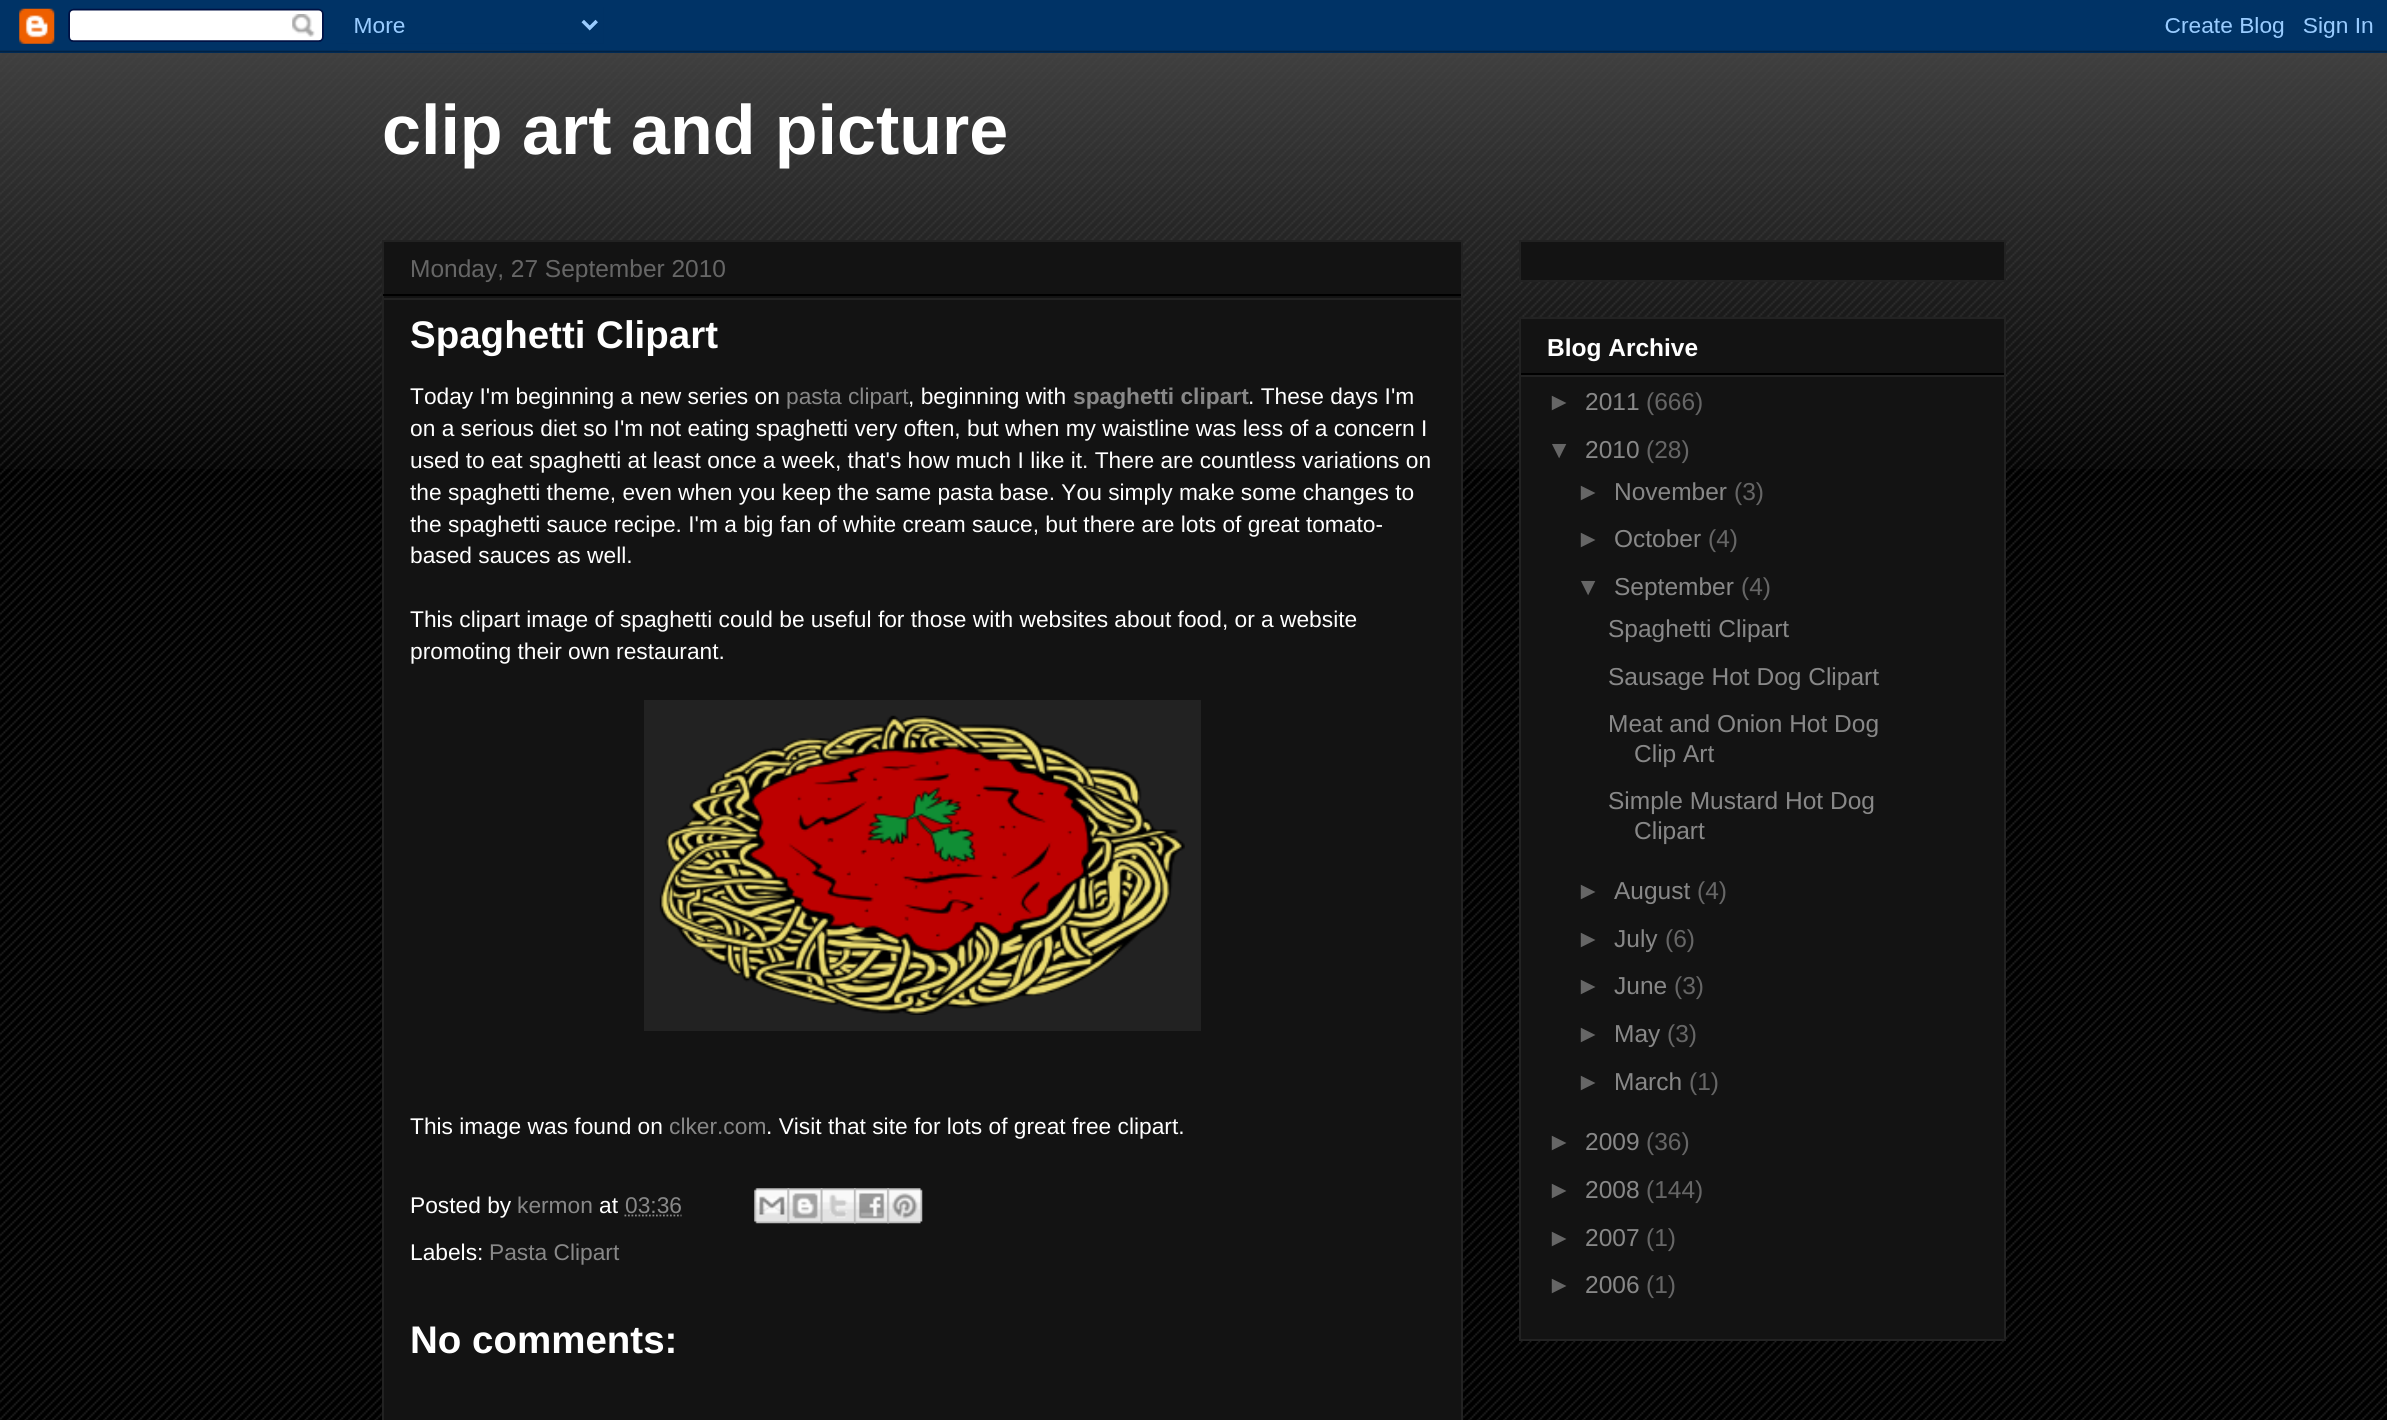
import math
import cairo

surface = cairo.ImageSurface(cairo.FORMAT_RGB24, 2387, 1420)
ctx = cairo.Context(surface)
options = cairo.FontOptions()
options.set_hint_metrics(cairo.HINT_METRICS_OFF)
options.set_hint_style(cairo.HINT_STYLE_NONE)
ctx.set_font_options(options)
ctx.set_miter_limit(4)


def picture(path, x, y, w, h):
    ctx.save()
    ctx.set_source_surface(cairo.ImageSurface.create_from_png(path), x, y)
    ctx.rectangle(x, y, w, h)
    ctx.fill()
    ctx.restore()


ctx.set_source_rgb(0, 0, 0)
ctx.paint()
picture("img1.png", 0, 50, 2387, 1370)
picture("img3.png", 0, 50, 2387, 419)
picture("img2.png", 0, 0, 2387, 53)
ctx.select_font_face("Liberation Sans", cairo.FONT_SLANT_NORMAL, cairo.FONT_WEIGHT_BOLD)
ctx.set_font_size(70)
ctx.set_source_rgb(1, 1, 1)
ctx.move_to(382, 154)
ctx.show_text("clip art and picture")
ctx.set_source_rgb(0.078, 0.078, 0.078)
ctx.rectangle(383, 241, 1079, 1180)
ctx.fill_preserve()
ctx.set_source_rgb(0.133, 0.133, 0.133)
ctx.stroke()
ctx.set_source_rgb(0, 0, 0)
ctx.rectangle(383, 294, 1078, 2)
ctx.fill()
ctx.select_font_face("Liberation Sans")
ctx.set_font_size(24.5)
ctx.set_source_rgb(0.4, 0.4, 0.4)
ctx.move_to(410, 277)
ctx.show_text("Monday, 27 September 2010")
ctx.set_source_rgb(0.133, 0.133, 0.133)
ctx.rectangle(383, 298, 1078, 2)
ctx.fill()
ctx.select_font_face("Liberation Sans", cairo.FONT_SLANT_NORMAL, cairo.FONT_WEIGHT_BOLD)
ctx.set_font_size(38.5)
ctx.set_source_rgb(1, 1, 1)
ctx.move_to(410, 348)
ctx.show_text("Spaghetti Clipart")
ctx.select_font_face("Liberation Sans")
ctx.set_font_size(22.75)
ctx.move_to(410, 404)
ctx.show_text("Today I'm beginning a new series on")
ctx.set_source_rgb(0.533, 0.533, 0.533)
ctx.move_to(786, 404)
ctx.show_text("pasta clipart")
ctx.set_source_rgb(1, 1, 1)
ctx.move_to(908, 404)
ctx.show_text(", beginning with")
ctx.select_font_face("Liberation Sans", cairo.FONT_SLANT_NORMAL, cairo.FONT_WEIGHT_BOLD)
ctx.set_source_rgb(0.533, 0.533, 0.533)
ctx.move_to(1073, 404)
ctx.show_text("spaghetti clipart")
ctx.select_font_face("Liberation Sans")
ctx.set_source_rgb(1, 1, 1)
ctx.move_to(1248, 404)
ctx.show_text(". These days I'm")
ctx.move_to(410, 436)
ctx.show_text("on a serious diet so I'm not eating spaghetti very often, but when my waistline was less of a concern I")
ctx.move_to(410, 468)
ctx.show_text("used to eat spaghetti at least once a week, that's how much I like it. There are countless variations on")
ctx.move_to(410, 500)
ctx.show_text("the spaghetti theme, even when you keep the same pasta base. You simply make some changes to")
ctx.move_to(410, 532)
ctx.show_text("the spaghetti sauce recipe. I'm a big fan of white cream sauce, but there are lots of great tomato-")
ctx.move_to(410, 563)
ctx.show_text("based sauces as well.")
ctx.move_to(410, 627)
ctx.show_text("This clipart image of spaghetti could be useful for those with websites about food, or a website")
ctx.move_to(410, 659)
ctx.show_text("promoting their own restaurant.")
ctx.set_source_rgb(0.133, 0.133, 0.133)
ctx.rectangle(644, 700, 557, 331)
ctx.fill()
picture("img4.png", 659, 715, 526, 300)
ctx.set_source_rgb(1, 1, 1)
ctx.move_to(410, 1134)
ctx.show_text("This image was found on")
ctx.set_source_rgb(0.533, 0.533, 0.533)
ctx.move_to(669, 1134)
ctx.show_text("clker.com")
ctx.set_source_rgb(1, 1, 1)
ctx.move_to(766, 1134)
ctx.show_text(". Visit that site for lots of great free clipart.")
ctx.move_to(410, 1213)
ctx.show_text("Posted by")
ctx.set_source_rgb(0.533, 0.533, 0.533)
ctx.move_to(517, 1213)
ctx.show_text("kermon")
ctx.set_source_rgb(1, 1, 1)
ctx.move_to(599, 1213)
ctx.show_text("at")
ctx.set_source_rgb(0.533, 0.533, 0.533)
ctx.move_to(625, 1213)
ctx.show_text("03:36")
ctx.new_path()
ctx.move_to(624.5, 1215.5)
ctx.line_to(681.5, 1215.5)
ctx.set_line_width(1.8)
ctx.set_dash([1.75, 1.75])
ctx.stroke()
picture("img5.png", 754, 1188, 36, 36)
picture("img6.png", 787, 1188, 36, 36)
picture("img7.png", 820, 1188, 36, 36)
picture("img8.png", 854, 1188, 35, 36)
picture("img9.png", 887, 1188, 36, 36)
ctx.set_source_rgb(1, 1, 1)
ctx.move_to(410, 1260)
ctx.show_text("Labels:")
ctx.set_source_rgb(0.533, 0.533, 0.533)
ctx.move_to(489, 1260)
ctx.show_text("Pasta Clipart")
ctx.select_font_face("Liberation Sans", cairo.FONT_SLANT_NORMAL, cairo.FONT_WEIGHT_BOLD)
ctx.set_font_size(38.5)
ctx.set_source_rgb(1, 1, 1)
ctx.move_to(410, 1353)
ctx.show_text("No comments:")
ctx.set_source_rgb(0.078, 0.078, 0.078)
ctx.rectangle(1520, 241, 485, 40)
ctx.fill_preserve()
ctx.set_source_rgb(0.133, 0.133, 0.133)
ctx.set_line_width(2)
ctx.set_dash([])
ctx.stroke()
ctx.set_source_rgb(0.078, 0.078, 0.078)
ctx.rectangle(1520, 318, 485, 1022)
ctx.fill_preserve()
ctx.set_source_rgb(0.133, 0.133, 0.133)
ctx.stroke()
ctx.set_source_rgb(0, 0, 0)
ctx.rectangle(1521, 373, 483, 2)
ctx.fill()
ctx.set_font_size(24.5)
ctx.set_source_rgb(1, 1, 1)
ctx.move_to(1547, 356)
ctx.show_text("Blog Archive")
ctx.set_source_rgb(0.133, 0.133, 0.133)
ctx.rectangle(1521, 375, 483, 2)
ctx.fill()
ctx.select_font_face("Liberation Sans")
ctx.set_source_rgb(0.4, 0.4, 0.4)
ctx.move_to(1547, 410)
ctx.show_text("►")
ctx.set_source_rgb(0.533, 0.533, 0.533)
ctx.move_to(1585, 410)
ctx.show_text("2011")
ctx.set_source_rgb(0.4, 0.4, 0.4)
ctx.move_to(1646, 410)
ctx.show_text("(666)")
ctx.move_to(1547, 458)
ctx.show_text("▼")
ctx.set_source_rgb(0.533, 0.533, 0.533)
ctx.move_to(1585, 458)
ctx.show_text("2010")
ctx.set_source_rgb(0.4, 0.4, 0.4)
ctx.move_to(1646, 458)
ctx.show_text("(28)")
ctx.move_to(1576, 500)
ctx.show_text("►")
ctx.set_source_rgb(0.533, 0.533, 0.533)
ctx.move_to(1614, 500)
ctx.show_text("November")
ctx.set_source_rgb(0.4, 0.4, 0.4)
ctx.move_to(1734, 500)
ctx.show_text("(3)")
ctx.move_to(1576, 547)
ctx.show_text("►")
ctx.set_source_rgb(0.533, 0.533, 0.533)
ctx.move_to(1614, 547)
ctx.show_text("October")
ctx.set_source_rgb(0.4, 0.4, 0.4)
ctx.move_to(1708, 547)
ctx.show_text("(4)")
ctx.move_to(1576, 595)
ctx.show_text("▼")
ctx.set_source_rgb(0.533, 0.533, 0.533)
ctx.move_to(1614, 595)
ctx.show_text("September")
ctx.set_source_rgb(0.4, 0.4, 0.4)
ctx.move_to(1741, 595)
ctx.show_text("(4)")
ctx.set_source_rgb(0.533, 0.533, 0.533)
ctx.move_to(1608, 637)
ctx.show_text("Spaghetti Clipart")
ctx.move_to(1608, 685)
ctx.show_text("Sausage Hot Dog Clipart")
ctx.move_to(1608, 732)
ctx.show_text("Meat and Onion Hot Dog")
ctx.move_to(1634, 762)
ctx.show_text("Clip Art")
ctx.move_to(1608, 809)
ctx.show_text("Simple Mustard Hot Dog")
ctx.move_to(1634, 839)
ctx.show_text("Clipart")
ctx.set_source_rgb(0.4, 0.4, 0.4)
ctx.move_to(1576, 899)
ctx.show_text("►")
ctx.set_source_rgb(0.533, 0.533, 0.533)
ctx.move_to(1614, 899)
ctx.show_text("August")
ctx.set_source_rgb(0.4, 0.4, 0.4)
ctx.move_to(1697, 899)
ctx.show_text("(4)")
ctx.move_to(1576, 947)
ctx.show_text("►")
ctx.set_source_rgb(0.533, 0.533, 0.533)
ctx.move_to(1614, 947)
ctx.show_text("July")
ctx.set_source_rgb(0.4, 0.4, 0.4)
ctx.move_to(1665, 947)
ctx.show_text("(6)")
ctx.move_to(1576, 994)
ctx.show_text("►")
ctx.set_source_rgb(0.533, 0.533, 0.533)
ctx.move_to(1614, 994)
ctx.show_text("June")
ctx.set_source_rgb(0.4, 0.4, 0.4)
ctx.move_to(1674, 994)
ctx.show_text("(3)")
ctx.move_to(1576, 1042)
ctx.show_text("►")
ctx.set_source_rgb(0.533, 0.533, 0.533)
ctx.move_to(1614, 1042)
ctx.show_text("May")
ctx.set_source_rgb(0.4, 0.4, 0.4)
ctx.move_to(1667, 1042)
ctx.show_text("(3)")
ctx.move_to(1576, 1090)
ctx.show_text("►")
ctx.set_source_rgb(0.533, 0.533, 0.533)
ctx.move_to(1614, 1090)
ctx.show_text("March")
ctx.set_source_rgb(0.4, 0.4, 0.4)
ctx.move_to(1689, 1090)
ctx.show_text("(1)")
ctx.move_to(1547, 1150)
ctx.show_text("►")
ctx.set_source_rgb(0.533, 0.533, 0.533)
ctx.move_to(1585, 1150)
ctx.show_text("2009")
ctx.set_source_rgb(0.4, 0.4, 0.4)
ctx.move_to(1646, 1150)
ctx.show_text("(36)")
ctx.move_to(1547, 1198)
ctx.show_text("►")
ctx.set_source_rgb(0.533, 0.533, 0.533)
ctx.move_to(1585, 1198)
ctx.show_text("2008")
ctx.set_source_rgb(0.4, 0.4, 0.4)
ctx.move_to(1646, 1198)
ctx.show_text("(144)")
ctx.move_to(1547, 1246)
ctx.show_text("►")
ctx.set_source_rgb(0.533, 0.533, 0.533)
ctx.move_to(1585, 1246)
ctx.show_text("2007")
ctx.set_source_rgb(0.4, 0.4, 0.4)
ctx.move_to(1646, 1246)
ctx.show_text("(1)")
ctx.move_to(1547, 1293)
ctx.show_text("►")
ctx.set_source_rgb(0.533, 0.533, 0.533)
ctx.move_to(1585, 1293)
ctx.show_text("2006")
ctx.set_source_rgb(0.4, 0.4, 0.4)
ctx.move_to(1646, 1293)
ctx.show_text("(1)")
surface.write_to_png("page.png")
